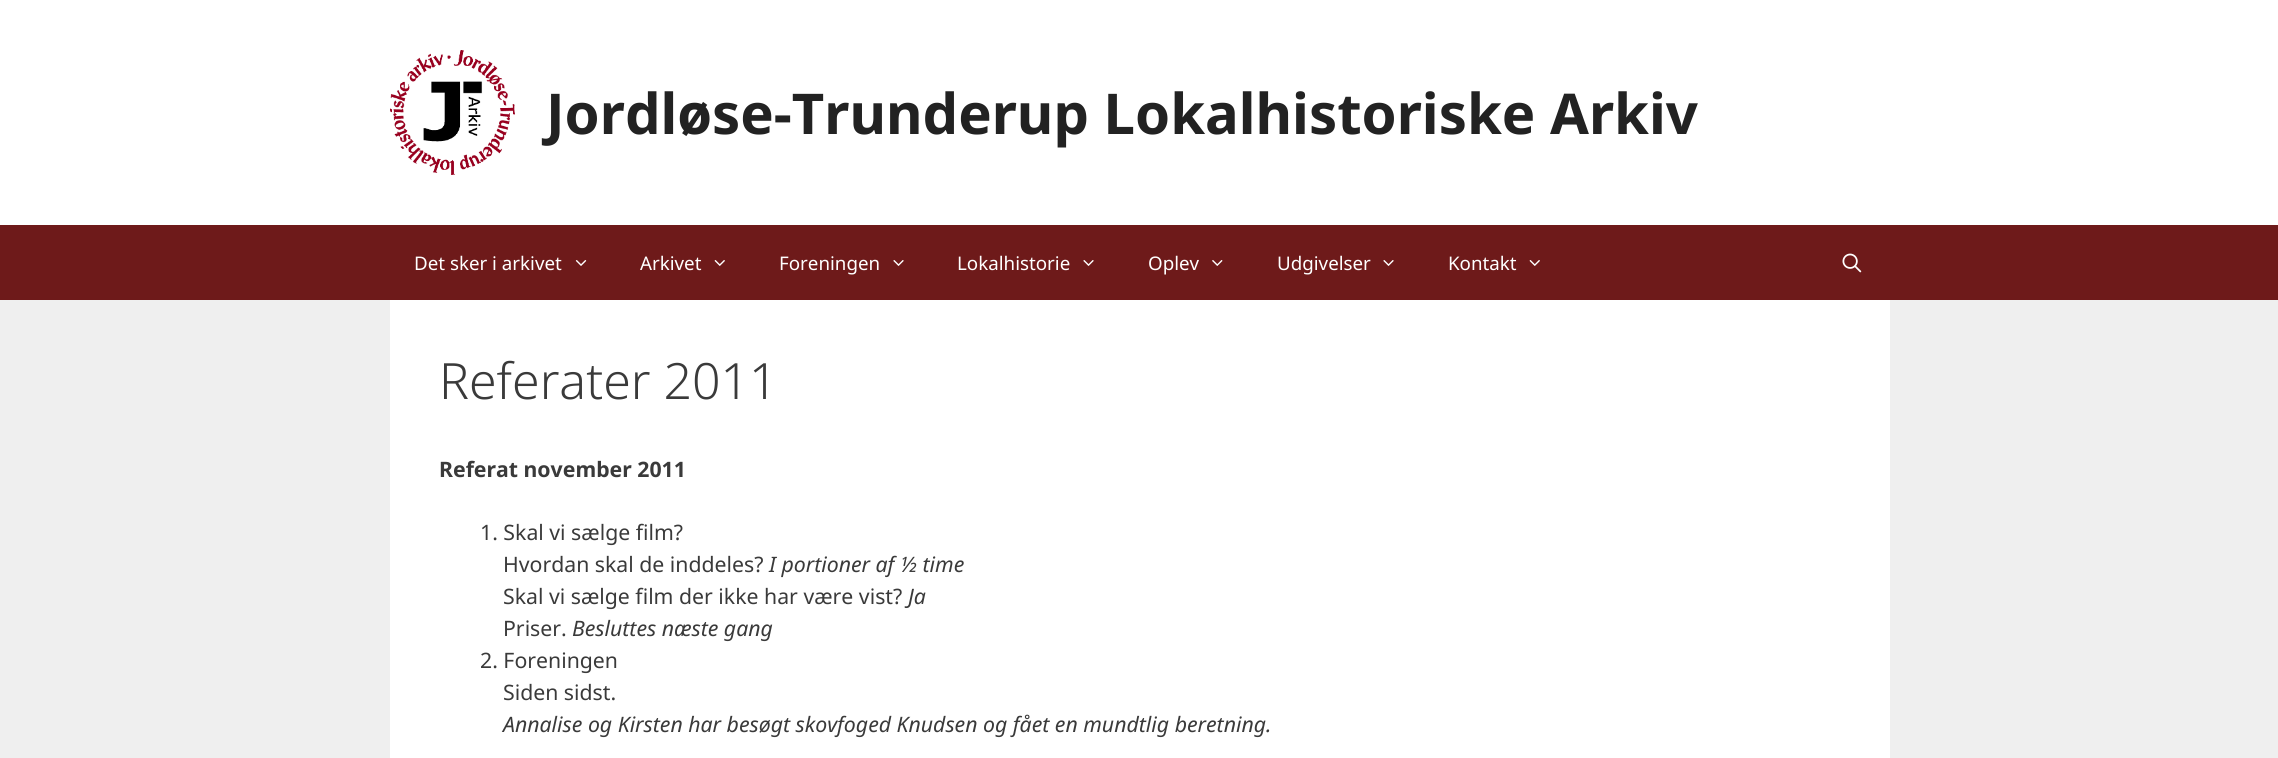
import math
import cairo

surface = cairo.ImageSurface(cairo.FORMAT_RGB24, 2278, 758)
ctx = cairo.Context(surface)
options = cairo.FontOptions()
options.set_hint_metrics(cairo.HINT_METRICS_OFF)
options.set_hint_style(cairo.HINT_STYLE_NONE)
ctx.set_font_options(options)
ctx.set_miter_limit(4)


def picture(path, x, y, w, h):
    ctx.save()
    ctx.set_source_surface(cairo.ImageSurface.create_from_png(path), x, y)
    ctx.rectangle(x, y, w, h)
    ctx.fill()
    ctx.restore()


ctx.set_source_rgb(0.937, 0.937, 0.937)
ctx.paint()
ctx.set_source_rgb(1, 1, 1)
ctx.rectangle(0, 0, 2278, 225)
ctx.fill()
picture("img1.png", 390, 50, 125, 125)
ctx.select_font_face("Noto Sans", cairo.FONT_SLANT_NORMAL, cairo.FONT_WEIGHT_BOLD)
ctx.set_font_size(56.25)
ctx.set_source_rgb(0.133, 0.133, 0.133)
ctx.move_to(546, 134)
ctx.show_text("Jordløse-Trunderup Lokalhistoriske Arkiv")
ctx.set_source_rgb(0.431, 0.102, 0.102)
ctx.rectangle(0, 225, 2278, 75)
ctx.fill()
ctx.select_font_face("Noto Sans")
ctx.set_font_size(18.75)
ctx.set_source_rgb(1, 1, 1)
ctx.move_to(414, 270)
ctx.show_text("Det sker i arkivet")
picture("img2.png", 575, 260, 12, 6)
ctx.move_to(640, 270)
ctx.show_text("Arkivet")
picture("img3.png", 714, 260, 11, 6)
ctx.move_to(779, 270)
ctx.show_text("Foreningen")
picture("img4.png", 893, 260, 11, 6)
ctx.move_to(957, 270)
ctx.show_text("Lokalhistorie")
picture("img4.png", 1083, 260, 11, 6)
ctx.move_to(1148, 270)
ctx.show_text("Oplev")
picture("img5.png", 1212, 260, 11, 6)
ctx.move_to(1277, 270)
ctx.show_text("Udgivelser")
picture("img4.png", 1383, 260, 11, 6)
ctx.move_to(1448, 270)
ctx.show_text("Kontakt")
picture("img3.png", 1529, 260, 11, 6)
picture("img6.png", 1842, 253, 20, 20)
ctx.rectangle(390, 300, 1500, 458)
ctx.fill()
ctx.select_font_face("Noto Sans Light")
ctx.set_font_size(50)
ctx.set_source_rgb(0.227, 0.227, 0.227)
ctx.move_to(439, 399)
ctx.show_text("Referater 2011")
ctx.select_font_face("Noto Sans", cairo.FONT_SLANT_NORMAL, cairo.FONT_WEIGHT_BOLD)
ctx.set_font_size(21.25)
ctx.move_to(439, 477)
ctx.show_text("Referat november 2011")
ctx.select_font_face("Noto Sans")
ctx.move_to(480, 540)
ctx.show_text("1. Skal vi sælge film?")
ctx.move_to(503, 572)
ctx.show_text("Hvordan skal de inddeles?")
ctx.select_font_face("Noto Sans", cairo.FONT_SLANT_ITALIC)
ctx.move_to(769, 572)
ctx.show_text("I portioner af ½ time")
ctx.select_font_face("Noto Sans")
ctx.move_to(503, 604)
ctx.show_text("Skal vi sælge film der ikke har være vist?")
ctx.select_font_face("Noto Sans", cairo.FONT_SLANT_ITALIC)
ctx.move_to(908, 604)
ctx.show_text("Ja")
ctx.select_font_face("Noto Sans")
ctx.move_to(503, 636)
ctx.show_text("Priser.")
ctx.select_font_face("Noto Sans", cairo.FONT_SLANT_ITALIC)
ctx.move_to(572, 636)
ctx.show_text("Besluttes næste gang")
ctx.select_font_face("Noto Sans")
ctx.move_to(480, 668)
ctx.show_text("2. Foreningen")
ctx.move_to(503, 700)
ctx.show_text("Siden sidst.")
ctx.select_font_face("Noto Sans", cairo.FONT_SLANT_ITALIC)
ctx.move_to(503, 732)
ctx.show_text("Annalise og Kirsten har besøgt skovfoged Knudsen og fået en mundtlig beretning.")
surface.write_to_png("page.png")
